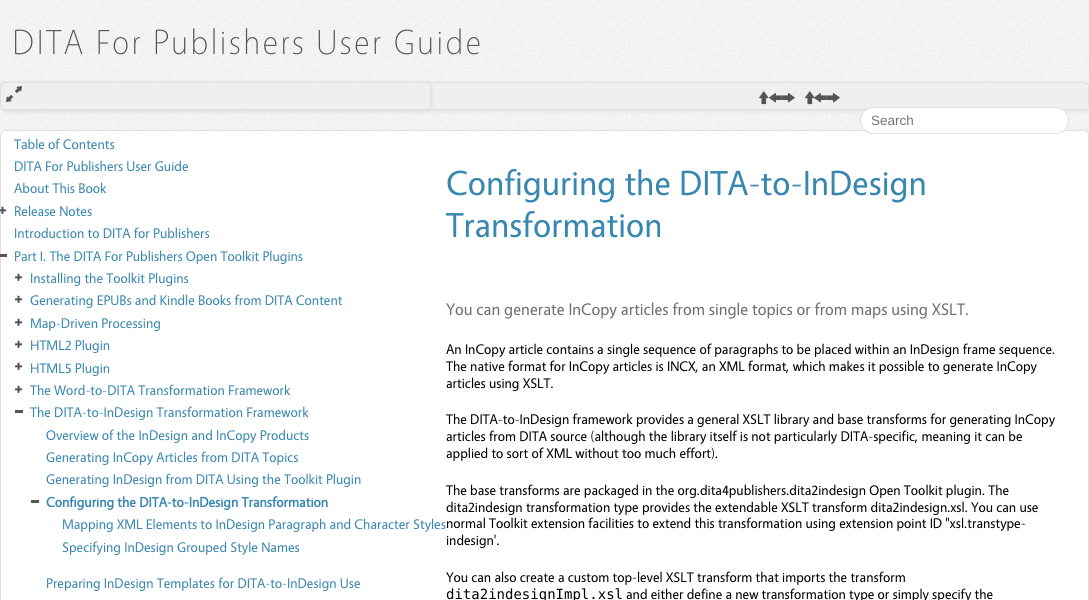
import math
import cairo

surface = cairo.ImageSurface(cairo.FORMAT_RGB24, 1089, 600)
ctx = cairo.Context(surface)
options = cairo.FontOptions()
options.set_hint_metrics(cairo.HINT_METRICS_OFF)
options.set_hint_style(cairo.HINT_STYLE_NONE)
ctx.set_font_options(options)
ctx.set_miter_limit(4)


def spaced_text(x, y, s, letter, word):
    ctx.move_to(x, y)
    for ch in s:
        ctx.show_text(ch)
        ctx.rel_move_to(letter + word * (ch == ' '), 0)


def round_rect(x, y, w, h, r):
    ctx.new_sub_path()
    for i, (u, v) in enumerate([(x + w - r, y + h - r), (x + r, y + h - r), (x + r, y + r), (x + w - r, y + r)]):
        ctx.arc(u, v, r, i * math.pi / 2, (i + 1) * math.pi / 2)
    ctx.close_path()


def shadow(x, y, w, h, r, blur, alpha):
    ctx.push_group_with_content(cairo.CONTENT_ALPHA)
    ctx.set_operator(cairo.OPERATOR_SOURCE)
    for i in range(15, -16, -2):
        e = blur * i / 6
        if min(w, h) + 2 * e > 0:
            ctx.set_source_rgba(0, 0, 0, alpha * math.erfc((i - 1) / 8.5) / 2)
            round_rect(x - e, y - e, w + 2 * e, h + 2 * e, max(0, min(r + e + blur * .6, min(w, h) / 2 + e)))
            ctx.fill()
    ctx.mask(ctx.pop_group())


def picture(path, x, y, w, h):
    ctx.save()
    ctx.set_source_surface(cairo.ImageSurface.create_from_png(path), x, y)
    ctx.rectangle(x, y, w, h)
    ctx.fill()
    ctx.restore()


ctx.set_source_rgb(1, 1, 1)
ctx.paint()
picture("img1.png", 0, 0, 1089, 135)
ctx.select_font_face("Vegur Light")
ctx.set_font_size(35)
ctx.set_source_rgb(0.314, 0.31, 0.31)
spaced_text(12, 54, "DITA For Publishers User Guide", 2, 0)
ctx.set_source_rgb(0.875, 0.875, 0.875)
shadow(1, 83, 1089, 28, 5, 2, 1)
ctx.set_source_rgb(0.937, 0.937, 0.937)
round_rect(0.5, 82.5, 1088, 27, 4.5)
ctx.fill_preserve()
ctx.set_source_rgb(0.875, 0.875, 0.875)
ctx.set_line_width(1)
ctx.stroke()
ctx.set_source_rgb(0.8, 0.8, 0.8)
shadow(3, 133, 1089, 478, 5, 2, 1)
ctx.set_source_rgb(1, 1, 1)
round_rect(0.5, 130.5, 1088, 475, 4.5)
ctx.fill_preserve()
ctx.set_source_rgb(0.875, 0.875, 0.875)
ctx.stroke()
ctx.set_source_rgb(1, 1, 1)
round_rect(860.5, 107.5, 208, 26, 13)
ctx.fill_preserve()
ctx.set_source_rgb(0.875, 0.875, 0.875)
ctx.stroke()
ctx.select_font_face("Liberation Sans")
ctx.set_font_size(13.5)
ctx.set_source_rgb(0.459, 0.459, 0.459)
ctx.move_to(871, 125)
ctx.show_text("Search")
ctx.set_source_rgb(0.875, 0.875, 0.875)
shadow(1, 83, 431, 28, 5, 2, 1)
ctx.set_source_rgb(0.937, 0.937, 0.937)
round_rect(0.5, 82.5, 430, 27, 4.5)
ctx.fill_preserve()
ctx.set_source_rgb(0.875, 0.875, 0.875)
ctx.stroke()
picture("img2.png", 6, 86, 16, 16)
ctx.select_font_face("Vegur")
ctx.set_font_size(14)
ctx.set_source_rgb(0.22, 0.529, 0.69)
ctx.move_to(14, 149)
ctx.show_text("Table of Contents")
ctx.move_to(14, 171)
ctx.show_text("DITA For Publishers User Guide")
ctx.move_to(14, 193)
ctx.show_text("About This Book")
picture("img3.png", 0, 206, 7, 8)
ctx.move_to(14, 216)
ctx.show_text("Release Notes")
ctx.move_to(14, 238)
ctx.show_text("Introduction to DITA for Publishers")
ctx.set_source_rgb(0.333, 0.333, 0.333)
ctx.rectangle(0, 254, 7, 3)
ctx.fill()
ctx.set_source_rgb(0.22, 0.529, 0.69)
ctx.move_to(14, 261)
ctx.show_text("Part I. The DITA For Publishers Open Toolkit Plugins")
picture("img4.png", 15, 273, 8, 8)
ctx.move_to(30, 283)
ctx.show_text("Installing the Toolkit Plugins")
picture("img4.png", 15, 295, 8, 8)
ctx.move_to(30, 305)
ctx.show_text("Generating EPUBs and Kindle Books from DITA Content")
picture("img4.png", 15, 318, 8, 8)
ctx.move_to(30, 328)
ctx.show_text("Map-Driven Processing")
picture("img4.png", 15, 340, 8, 8)
ctx.move_to(30, 350)
ctx.show_text("HTML2 Plugin")
picture("img4.png", 15, 362, 8, 8)
ctx.move_to(30, 373)
ctx.show_text("HTML5 Plugin")
picture("img4.png", 15, 385, 8, 8)
ctx.move_to(30, 395)
ctx.show_text("The Word-to-DITA Transformation Framework")
ctx.set_source_rgb(0.333, 0.333, 0.333)
ctx.rectangle(15, 410, 8, 3)
ctx.fill()
ctx.set_source_rgb(0.22, 0.529, 0.69)
ctx.move_to(30, 417)
ctx.show_text("The DITA-to-InDesign Transformation Framework")
ctx.move_to(46, 440)
ctx.show_text("Overview of the InDesign and InCopy Products")
ctx.move_to(46, 462)
ctx.show_text("Generating InCopy Articles from DITA Topics")
ctx.move_to(46, 484)
ctx.show_text("Generating InDesign from DITA Using the Toolkit Plugin")
ctx.set_source_rgb(0.333, 0.333, 0.333)
ctx.rectangle(31, 500, 8, 3)
ctx.fill()
ctx.select_font_face("Vegur", cairo.FONT_SLANT_NORMAL, cairo.FONT_WEIGHT_BOLD)
ctx.set_source_rgb(0.22, 0.529, 0.69)
ctx.move_to(46, 507)
ctx.show_text("Configuring the DITA-to-InDesign Transformation")
ctx.select_font_face("Vegur")
ctx.move_to(62, 529)
ctx.show_text("Mapping XML Elements to InDesign Paragraph and Character Styles")
ctx.move_to(62, 552)
ctx.show_text("Specifying InDesign Grouped Style Names")
ctx.move_to(46, 588)
ctx.show_text("Preparing InDesign Templates for DITA-to-InDesign Use")
picture("img5.png", 759, 91, 10, 14)
picture("img6.png", 769, 93, 13, 10)
picture("img7.png", 782, 93, 13, 10)
picture("img5.png", 805, 91, 10, 14)
picture("img8.png", 814, 93, 13, 10)
picture("img7.png", 827, 93, 13, 10)
ctx.set_font_size(35)
ctx.move_to(446, 195)
ctx.show_text("Configuring the DITA-to-InDesign")
ctx.move_to(446, 237)
ctx.show_text("Transformation")
ctx.set_font_size(16.8)
ctx.set_source_rgb(0.435, 0.435, 0.435)
ctx.move_to(446, 315)
ctx.show_text("You can generate InCopy articles from single topics or from maps using XSLT.")
ctx.set_font_size(14)
ctx.set_source_rgb(0, 0, 0)
ctx.move_to(446, 354)
ctx.show_text("An InCopy article contains a single sequence of paragraphs to be placed within an InDesign frame sequence.")
ctx.move_to(446, 371)
ctx.show_text("The native format for InCopy articles is INCX, an XML format, which makes it possible to generate InCopy")
ctx.move_to(446, 388)
ctx.show_text("articles using XSLT.")
ctx.move_to(446, 424)
ctx.show_text("The DITA-to-InDesign framework provides a general XSLT library and base transforms for generating InCopy")
ctx.move_to(446, 441)
ctx.show_text("articles from DITA source (although the library itself is not particularly DITA-specific, meaning it can be")
ctx.move_to(446, 458)
ctx.show_text("applied to sort of XML without too much effort).")
ctx.move_to(446, 495)
ctx.show_text("The base transforms are packaged in the org.dita4publishers.dita2indesign Open Toolkit plugin. The")
ctx.move_to(446, 512)
ctx.show_text("dita2indesign transformation type provides the extendable XSLT transform dita2indesign.xsl. You can use")
ctx.move_to(446, 528)
ctx.show_text("normal Toolkit extension facilities to extend this transformation using extension point ID \"xsl.transtype-")
ctx.move_to(446, 545)
ctx.show_text("indesign'.")
ctx.move_to(446, 582)
ctx.show_text("You can also create a custom top-level XSLT transform that imports the transform")
ctx.select_font_face("DejaVu Sans Mono")
ctx.move_to(446, 599)
ctx.show_text("dita2indesignImpl.xsl")
ctx.select_font_face("Vegur")
ctx.move_to(626, 599)
ctx.show_text("and either define a new transformation type or simply specify the")
surface.write_to_png("page.png")
